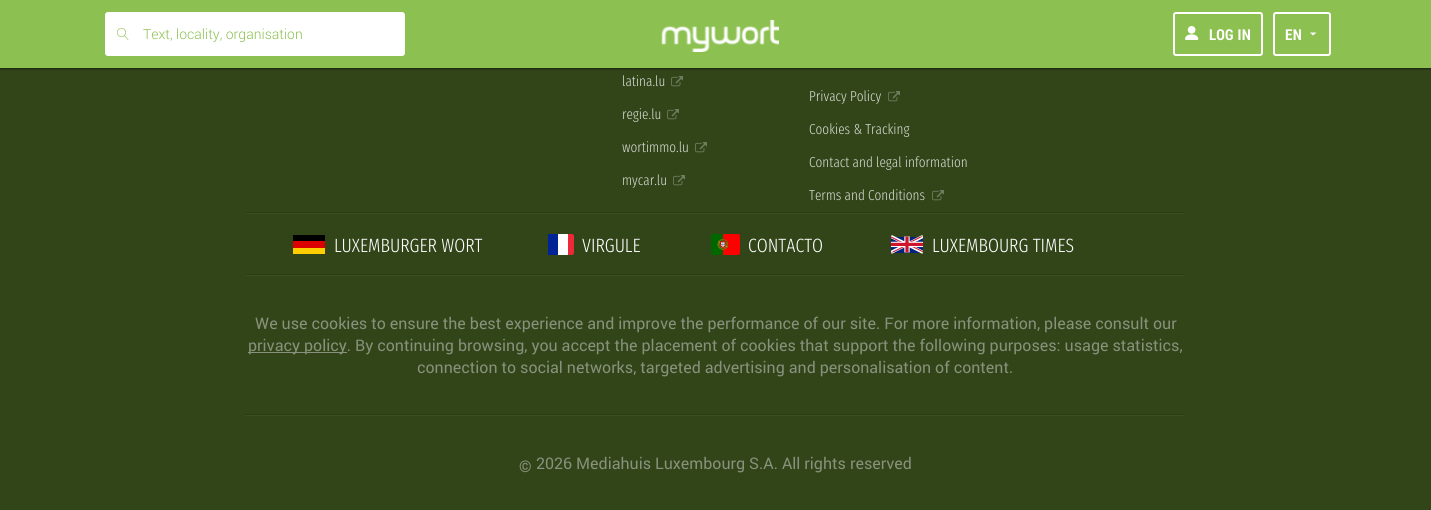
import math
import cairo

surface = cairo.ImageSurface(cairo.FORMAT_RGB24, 1431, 510)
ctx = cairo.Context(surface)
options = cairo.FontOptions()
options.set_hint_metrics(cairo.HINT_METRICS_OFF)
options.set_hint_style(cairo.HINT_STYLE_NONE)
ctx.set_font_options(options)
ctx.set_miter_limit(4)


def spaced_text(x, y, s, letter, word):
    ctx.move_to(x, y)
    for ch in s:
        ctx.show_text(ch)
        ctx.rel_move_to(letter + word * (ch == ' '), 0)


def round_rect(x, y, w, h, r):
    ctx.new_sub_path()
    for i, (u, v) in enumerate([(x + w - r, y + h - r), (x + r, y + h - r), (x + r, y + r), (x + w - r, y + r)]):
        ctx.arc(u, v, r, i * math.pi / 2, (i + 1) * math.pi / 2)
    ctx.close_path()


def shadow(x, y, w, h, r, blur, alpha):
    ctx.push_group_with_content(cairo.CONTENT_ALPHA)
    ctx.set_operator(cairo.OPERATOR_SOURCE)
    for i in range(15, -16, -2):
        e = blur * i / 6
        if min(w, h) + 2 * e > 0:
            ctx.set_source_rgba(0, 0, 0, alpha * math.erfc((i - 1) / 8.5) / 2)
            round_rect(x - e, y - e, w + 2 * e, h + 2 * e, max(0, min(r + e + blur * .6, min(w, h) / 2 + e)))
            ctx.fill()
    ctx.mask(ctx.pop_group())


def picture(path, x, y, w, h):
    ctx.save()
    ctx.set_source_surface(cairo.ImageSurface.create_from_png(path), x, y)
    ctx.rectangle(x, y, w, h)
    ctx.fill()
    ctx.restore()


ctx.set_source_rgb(0.192, 0.271, 0.098)
ctx.paint()
ctx.set_source_rgb(0, 0, 0)
shadow(0, 1, 1431, 68, 0, 1, 0.5)
ctx.set_source_rgb(0.549, 0.753, 0.318)
ctx.rectangle(0, 0, 1431, 68)
ctx.fill()
ctx.set_source_rgb(1, 1, 1)
round_rect(105, 12, 300, 44, 3)
ctx.fill()
picture("img1.png", 117, 28, 12, 12)
ctx.select_font_face("Roboto Light")
ctx.set_font_size(14)
ctx.set_source_rgb(0.549, 0.753, 0.318)
ctx.move_to(143, 39)
ctx.show_text("Text, locality, organisation")
picture("img2.png", 661, 20, 118, 32)
round_rect(1174, 13, 88, 42, 2)
ctx.set_source_rgb(1, 1, 1)
ctx.stroke()
picture("img3.png", 1185, 26, 14, 14)
ctx.select_font_face("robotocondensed", cairo.FONT_SLANT_NORMAL, cairo.FONT_WEIGHT_BOLD)
ctx.set_font_size(15)
spaced_text(1209, 40, "LOG IN", 0.25, 0)
round_rect(1274, 13, 56, 42, 2)
ctx.stroke()
spaced_text(1285, 40, "EN", 0.25, 0)
ctx.set_fill_rule(cairo.FILL_RULE_EVEN_ODD)
ctx.new_path()
ctx.move_to(1310, 32.5)
ctx.line_to(1313, 35.5)
ctx.line_to(1316.5, 32.5)
ctx.close_path()
ctx.fill()
ctx.select_font_face("Fira Sans Extra Condensed Light")
ctx.set_font_size(14.4)
ctx.set_source_rgb(0.839, 0.855, 0.82)
ctx.move_to(622, 86)
ctx.show_text("latina.lu")
picture("img4.png", 671, 76, 12, 11)
ctx.move_to(622, 119)
ctx.show_text("regie.lu")
picture("img4.png", 667, 109, 12, 11)
ctx.move_to(622, 152)
ctx.show_text("wortimmo.lu")
picture("img4.png", 695, 142, 12, 11)
ctx.move_to(622, 185)
ctx.show_text("mycar.lu")
picture("img4.png", 673, 175, 12, 11)
ctx.move_to(809, 101)
ctx.show_text("Privacy Policy")
picture("img4.png", 888, 91, 12, 11)
ctx.move_to(809, 134)
ctx.show_text("Cookies & Tracking")
ctx.move_to(809, 167)
ctx.show_text("Contact and legal information")
ctx.move_to(809, 200)
ctx.show_text("Terms and Conditions")
picture("img4.png", 932, 190, 12, 11)
ctx.set_source_rgb(0.161, 0.227, 0.082)
ctx.rectangle(246, 212, 939, 1)
ctx.fill()
ctx.set_source_rgb(0.224, 0.318, 0.114)
ctx.rectangle(246, 213, 939, 1)
ctx.fill()
ctx.set_source_rgb(0, 0, 0)
ctx.rectangle(293, 235, 32, 19)
ctx.fill()
ctx.set_source_rgb(0.867, 0, 0)
ctx.rectangle(293, 241, 32, 13)
ctx.fill()
ctx.set_source_rgb(1, 0.808, 0)
ctx.rectangle(293, 248, 32, 6)
ctx.fill()
ctx.set_font_size(19.25)
ctx.set_source_rgb(1, 1, 1)
ctx.move_to(334, 252)
ctx.show_text("LUXEMBURGER WORT")
ctx.save()
ctx.set_fill_rule(cairo.FILL_RULE_WINDING)
round_rect(547, 234, 27, 21, 2)
ctx.clip()
ctx.set_source_rgb(0.929, 0.161, 0.224)
ctx.new_path()
ctx.move_to(548, 234)
ctx.line_to(572, 234)
ctx.curve_to(573, 234, 574, 235, 574, 236)
ctx.line_to(574, 253)
ctx.curve_to(574, 254, 573, 255, 572, 255)
ctx.line_to(548, 255)
ctx.close_path()
ctx.fill()
ctx.restore()
ctx.rectangle(548, 234, 20, 21)
ctx.fill()
ctx.set_source_rgb(0, 0.137, 0.584)
ctx.rectangle(548, 234, 10, 21)
ctx.fill()
ctx.set_source_rgb(1, 1, 1)
ctx.move_to(582, 252)
ctx.show_text("VIRGULE")
picture("img5.png", 711, 234, 29, 21)
ctx.move_to(748, 252)
ctx.show_text("CONTACTO")
picture("img6.png", 891, 235, 32, 19)
ctx.move_to(932, 252)
ctx.show_text("LUXEMBOURG TIMES")
ctx.set_source_rgb(0.161, 0.227, 0.082)
ctx.rectangle(246, 274, 939, 1)
ctx.fill()
ctx.set_source_rgb(0.224, 0.318, 0.114)
ctx.rectangle(246, 275, 939, 1)
ctx.fill()
ctx.select_font_face("Roboto")
ctx.set_font_size(16)
ctx.set_source_rgb(0.529, 0.569, 0.482)
ctx.move_to(255, 329)
ctx.show_text("We use cookies to ensure the best experience and improve the performance of our site. For more information, please consult our")
ctx.rectangle(248, 352, 99, 1)
ctx.fill()
ctx.move_to(248, 351)
ctx.show_text("privacy policy. By continuing browsing, you accept the placement of cookies that support the following purposes: usage statistics,")
ctx.move_to(417, 373)
ctx.show_text("connection to social networks, targeted advertising and personalisation of content.")
ctx.set_source_rgb(0.161, 0.227, 0.082)
ctx.rectangle(246, 414, 939, 1)
ctx.fill()
ctx.set_source_rgb(0.224, 0.318, 0.114)
ctx.rectangle(246, 415, 939, 1)
ctx.fill()
ctx.set_source_rgb(0.529, 0.569, 0.482)
ctx.move_to(519, 472)
ctx.show_text("©")
ctx.move_to(536, 469)
ctx.show_text("2026 Mediahuis Luxembourg S.A. All rights reserved")
surface.write_to_png("page.png")
